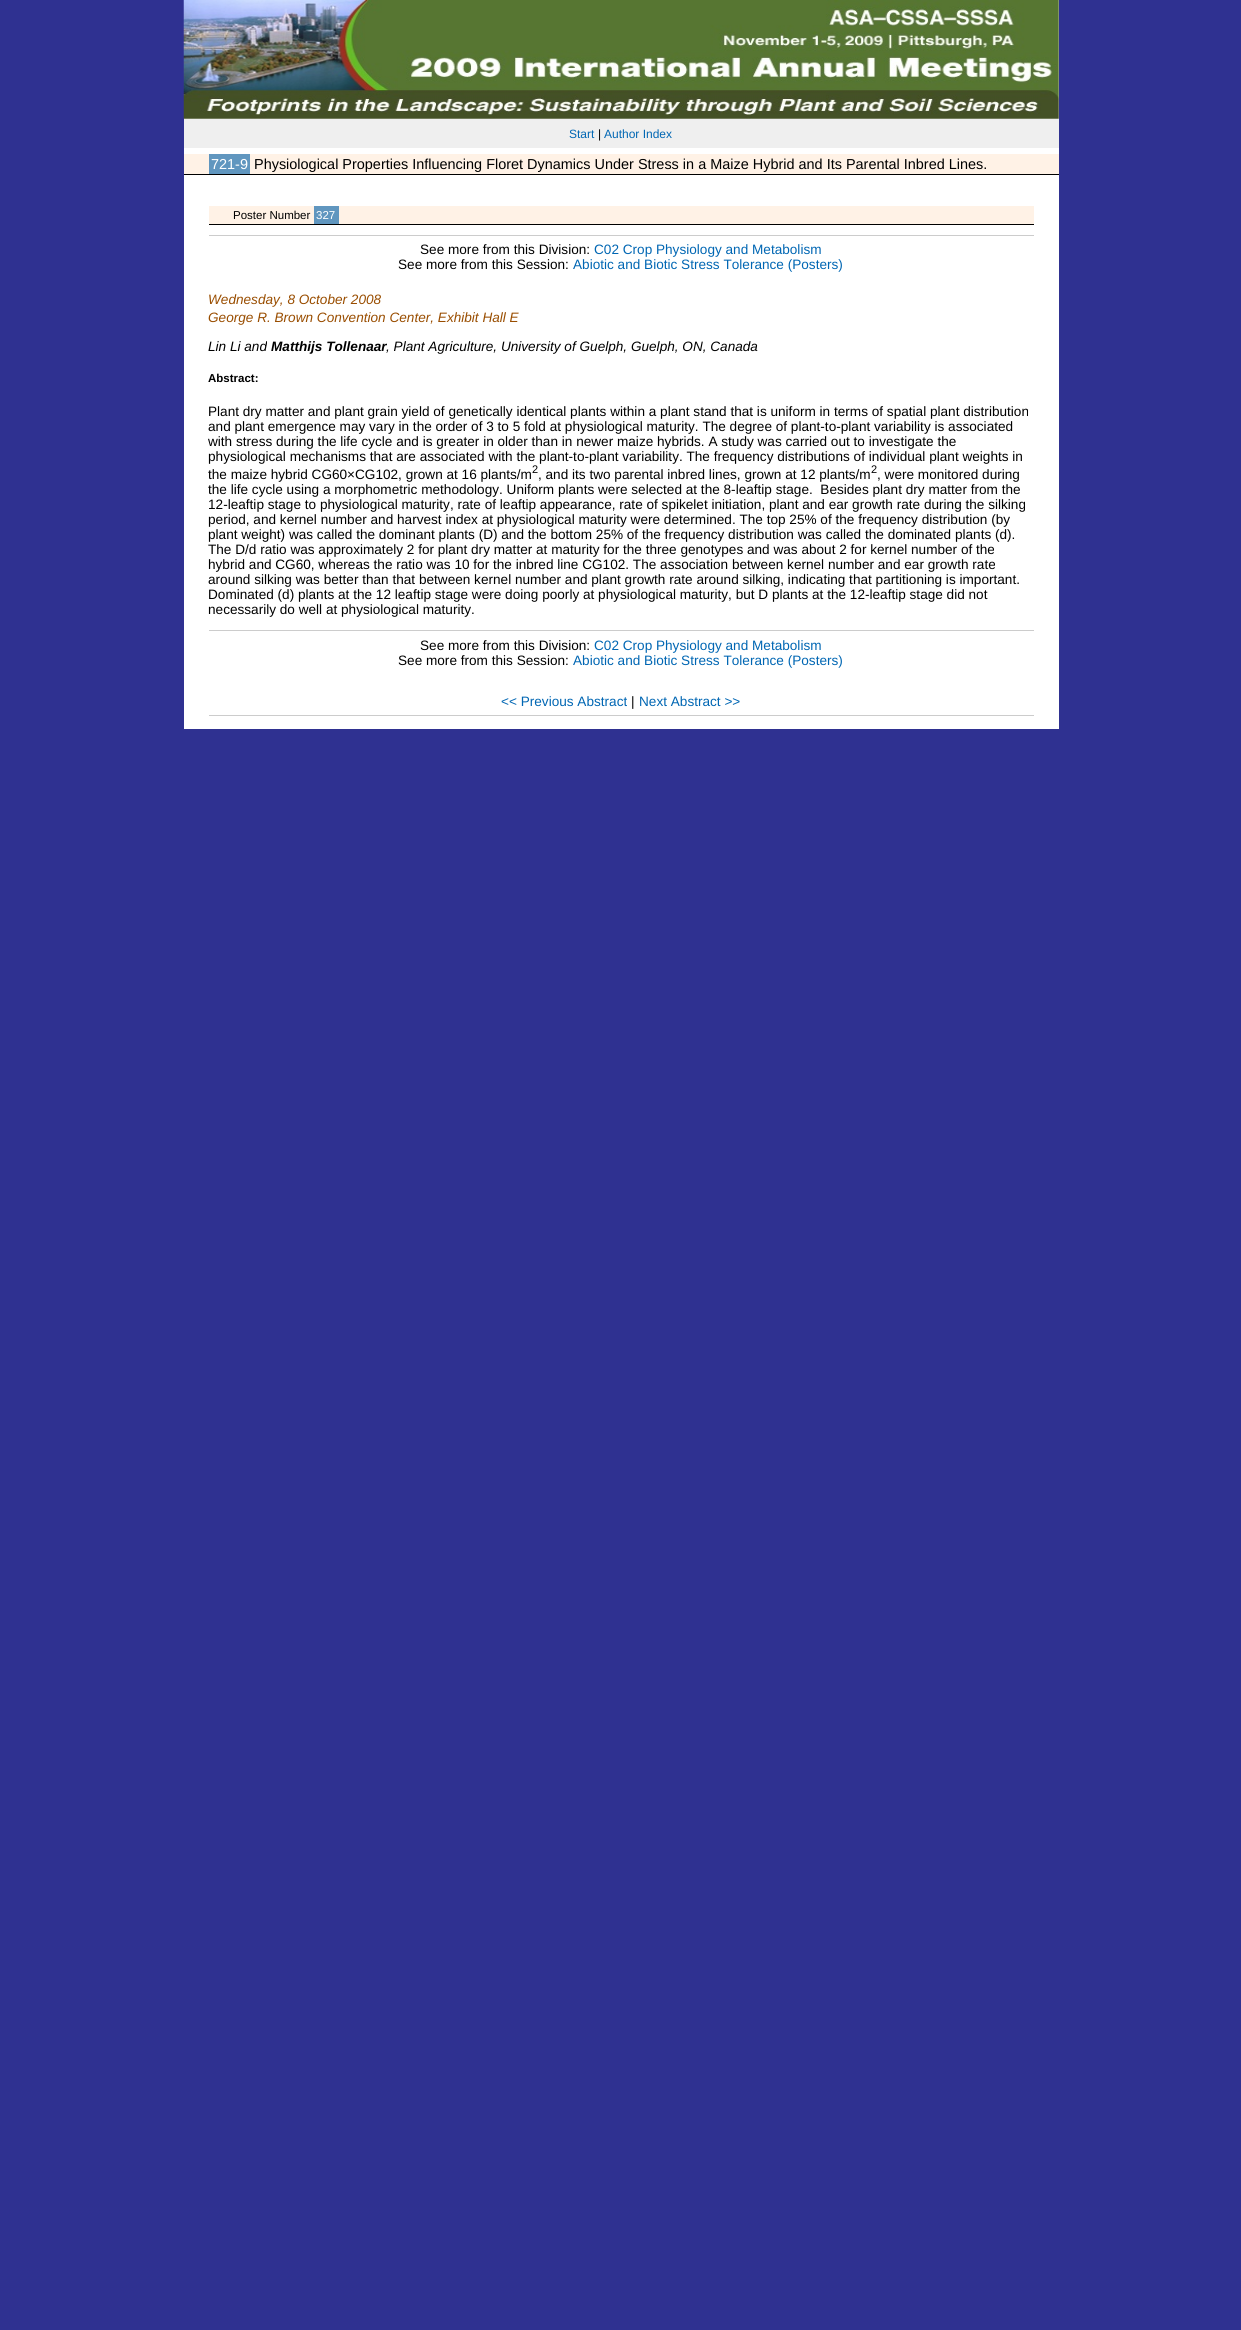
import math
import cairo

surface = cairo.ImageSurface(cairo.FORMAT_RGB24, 1241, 2330)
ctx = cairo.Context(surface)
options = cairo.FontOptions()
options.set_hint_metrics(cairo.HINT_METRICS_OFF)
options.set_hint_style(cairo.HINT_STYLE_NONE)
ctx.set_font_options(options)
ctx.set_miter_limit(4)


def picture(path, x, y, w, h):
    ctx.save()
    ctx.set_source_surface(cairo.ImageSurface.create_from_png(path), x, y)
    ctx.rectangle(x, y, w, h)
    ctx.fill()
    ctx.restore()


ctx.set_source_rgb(0.184, 0.192, 0.569)
ctx.paint()
ctx.set_source_rgb(1, 1, 1)
ctx.rectangle(184, 0, 875, 729)
ctx.fill()
picture("img1.png", 183, 0, 876, 119)
ctx.set_source_rgb(0.937, 0.937, 0.937)
ctx.rectangle(184, 119, 875, 29)
ctx.fill()
ctx.select_font_face("Liberation Sans")
ctx.set_font_size(12)
ctx.set_source_rgb(0, 0.4, 0.702)
ctx.move_to(569, 138)
ctx.show_text("Start")
ctx.set_source_rgb(0, 0, 0)
ctx.move_to(598, 138)
ctx.show_text("|")
ctx.set_source_rgb(0, 0.4, 0.702)
ctx.move_to(604, 138)
ctx.show_text("Author Index")
ctx.set_source_rgb(1, 0.949, 0.902)
ctx.rectangle(184, 154, 875, 20)
ctx.fill()
ctx.set_source_rgb(0, 0, 0)
ctx.rectangle(184, 174, 875, 1)
ctx.fill()
ctx.set_source_rgb(0.376, 0.588, 0.749)
ctx.rectangle(209, 154, 41, 20)
ctx.fill()
ctx.set_font_size(14.45)
ctx.set_source_rgb(1, 1, 1)
ctx.move_to(211, 169)
ctx.show_text("721-9")
ctx.set_source_rgb(0, 0, 0)
ctx.move_to(254, 169)
ctx.show_text("Physiological Properties Influencing Floret Dynamics Under Stress in a Maize Hybrid and Its Parental Inbred Lines.")
ctx.set_source_rgb(1, 0.949, 0.902)
ctx.rectangle(209, 206, 825, 18)
ctx.fill()
ctx.set_source_rgb(0, 0, 0)
ctx.rectangle(209, 224, 825, 1)
ctx.fill()
ctx.set_font_size(11.5)
ctx.move_to(233, 219)
ctx.show_text("Poster Number")
ctx.set_source_rgb(0.376, 0.588, 0.749)
ctx.rectangle(314, 206, 25, 18)
ctx.fill()
ctx.set_source_rgb(1, 1, 1)
ctx.move_to(316, 219)
ctx.show_text("327")
ctx.set_source_rgb(0.8, 0.8, 0.8)
ctx.rectangle(209, 235, 825, 1)
ctx.fill()
ctx.set_font_size(13.6)
ctx.set_source_rgb(0, 0, 0)
ctx.move_to(420, 254)
ctx.show_text("See more from this Division:")
ctx.set_source_rgb(0, 0.4, 0.702)
ctx.move_to(594, 254)
ctx.show_text("C02 Crop Physiology and Metabolism")
ctx.set_source_rgb(0, 0, 0)
ctx.move_to(398, 269)
ctx.show_text("See more from this Session:")
ctx.set_source_rgb(0, 0.4, 0.702)
ctx.move_to(573, 269)
ctx.show_text("Abiotic and Biotic Stress Tolerance (Posters)")
ctx.select_font_face("Liberation Sans", cairo.FONT_SLANT_ITALIC)
ctx.set_source_rgb(0.6, 0.302, 0)
ctx.move_to(208, 304)
ctx.show_text("Wednesday, 8 October 2008")
ctx.move_to(208, 322)
ctx.show_text("George R. Brown Convention Center, Exhibit Hall E")
ctx.set_source_rgb(0, 0, 0)
ctx.move_to(208, 351)
ctx.show_text("Lin Li and")
ctx.select_font_face("Liberation Sans", cairo.FONT_SLANT_ITALIC, cairo.FONT_WEIGHT_BOLD)
ctx.move_to(271, 351)
ctx.show_text("Matthijs Tollenaar")
ctx.select_font_face("Liberation Sans", cairo.FONT_SLANT_ITALIC)
ctx.move_to(386, 351)
ctx.show_text(", Plant Agriculture, University of Guelph, Guelph, ON, Canada")
ctx.select_font_face("Liberation Sans", cairo.FONT_SLANT_NORMAL, cairo.FONT_WEIGHT_BOLD)
ctx.set_font_size(11.5)
ctx.move_to(208, 382)
ctx.show_text("Abstract:")
ctx.select_font_face("Liberation Sans")
ctx.set_font_size(13.6)
ctx.move_to(208, 416)
ctx.show_text("Plant dry matter and plant grain yield of genetically identical plants within a plant stand that is uniform in terms of spatial plant distribution")
ctx.move_to(208, 431)
ctx.show_text("and plant emergence may vary in the order of 3 to 5 fold at physiological maturity. The degree of plant-to-plant variability is associated")
ctx.move_to(208, 446)
ctx.show_text("with stress during the life cycle and is greater in older than in newer maize hybrids. A study was carried out to investigate the")
ctx.move_to(208, 461)
ctx.show_text("physiological mechanisms that are associated with the plant-to-plant variability. The frequency distributions of individual plant weights in")
ctx.move_to(208, 479)
ctx.show_text("the maize hybrid CG60×CG102, grown at 16 plants/m")
ctx.set_font_size(11)
ctx.move_to(532, 473)
ctx.show_text("2")
ctx.set_font_size(13.6)
ctx.move_to(538, 479)
ctx.show_text(", and its two parental inbred lines, grown at 12 plants/m")
ctx.set_font_size(11)
ctx.move_to(871, 473)
ctx.show_text("2")
ctx.set_font_size(13.6)
ctx.move_to(877, 479)
ctx.show_text(", were monitored during")
ctx.move_to(208, 494)
ctx.show_text("the life cycle using a morphometric methodology. Uniform plants were selected at the 8-leaftip stage.  Besides plant dry matter from the")
ctx.move_to(208, 509)
ctx.show_text("12-leaftip stage to physiological maturity, rate of leaftip appearance, rate of spikelet initiation, plant and ear growth rate during the silking")
ctx.move_to(208, 524)
ctx.show_text("period, and kernel number and harvest index at physiological maturity were determined. The top 25% of the frequency distribution (by")
ctx.move_to(208, 539)
ctx.show_text("plant weight) was called the dominant plants (D) and the bottom 25% of the frequency distribution was called the dominated plants (d).")
ctx.move_to(208, 554)
ctx.show_text("The D/d ratio was approximately 2 for plant dry matter at maturity for the three genotypes and was about 2 for kernel number of the")
ctx.move_to(208, 569)
ctx.show_text("hybrid and CG60, whereas the ratio was 10 for the inbred line CG102. The association between kernel number and ear growth rate")
ctx.move_to(208, 584)
ctx.show_text("around silking was better than that between kernel number and plant growth rate around silking, indicating that partitioning is important.")
ctx.move_to(208, 599)
ctx.show_text("Dominated (d) plants at the 12 leaftip stage were doing poorly at physiological maturity, but D plants at the 12-leaftip stage did not")
ctx.move_to(208, 614)
ctx.show_text("necessarily do well at physiological maturity.")
ctx.set_source_rgb(0.8, 0.8, 0.8)
ctx.rectangle(209, 630, 825, 1)
ctx.fill()
ctx.set_source_rgb(0, 0, 0)
ctx.move_to(420, 650)
ctx.show_text("See more from this Division:")
ctx.set_source_rgb(0, 0.4, 0.702)
ctx.move_to(594, 650)
ctx.show_text("C02 Crop Physiology and Metabolism")
ctx.set_source_rgb(0, 0, 0)
ctx.move_to(398, 665)
ctx.show_text("See more from this Session:")
ctx.set_source_rgb(0, 0.4, 0.702)
ctx.move_to(573, 665)
ctx.show_text("Abiotic and Biotic Stress Tolerance (Posters)")
ctx.set_source_rgb(0.8, 0.8, 0.8)
ctx.rectangle(209, 715, 825, 1)
ctx.fill()
ctx.set_source_rgb(0, 0.4, 0.702)
ctx.move_to(501, 706)
ctx.show_text("<< Previous Abstract")
ctx.set_source_rgb(0, 0, 0)
ctx.move_to(631, 706)
ctx.show_text("|")
ctx.set_source_rgb(0, 0.4, 0.702)
ctx.move_to(639, 706)
ctx.show_text("Next Abstract >>")
surface.write_to_png("page.png")
